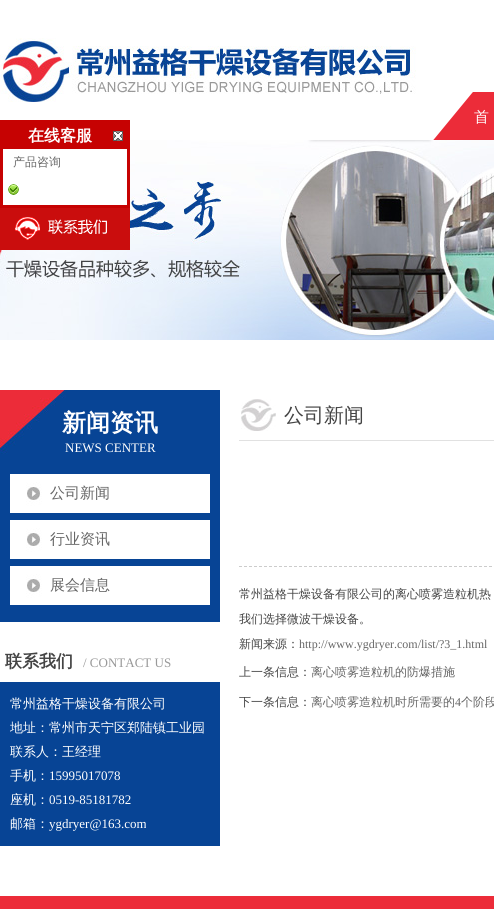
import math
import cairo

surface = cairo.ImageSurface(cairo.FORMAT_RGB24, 494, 909)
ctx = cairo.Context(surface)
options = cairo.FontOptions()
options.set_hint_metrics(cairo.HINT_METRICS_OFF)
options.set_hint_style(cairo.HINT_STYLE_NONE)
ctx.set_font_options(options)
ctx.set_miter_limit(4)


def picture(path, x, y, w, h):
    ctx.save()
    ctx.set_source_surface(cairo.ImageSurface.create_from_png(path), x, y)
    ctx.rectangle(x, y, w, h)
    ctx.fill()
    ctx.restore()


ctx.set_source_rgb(1, 1, 1)
ctx.paint()
picture("img1.png", 0, 38, 416, 64)
picture("img2.png", 462, 100, 5, 6)
picture("img3.png", 433, 92, 61, 48)
ctx.select_font_face("WenQuanYi Zen Hei Medium")
ctx.set_font_size(15)
ctx.set_source_rgb(1, 1, 1)
ctx.move_to(474, 122)
ctx.show_text("首")
picture("img7.png", 0, 140, 494, 200)
ctx.set_source_rgb(0.776, 0.008, 0.008)
ctx.rectangle(0, 120, 130, 88)
ctx.fill()
ctx.select_font_face("WenQuanYi Zen Hei", cairo.FONT_SLANT_NORMAL, cairo.FONT_WEIGHT_BOLD)
ctx.set_font_size(16)
ctx.set_source_rgb(1, 1, 1)
ctx.move_to(28, 141)
ctx.show_text("在线客服")
picture("img4.png", 113, 131, 10, 10)
ctx.rectangle(3, 149, 124, 56)
ctx.fill()
ctx.select_font_face("WenQuanYi Zen Hei Medium")
ctx.set_font_size(12)
ctx.set_source_rgb(0.4, 0.4, 0.4)
ctx.move_to(13, 166)
ctx.show_text("产品咨询")
picture("img5.png", 8, 184, 11, 11)
picture("img6.png", 0, 208, 130, 42)
ctx.set_source_rgb(0.031, 0.267, 0.584)
ctx.rectangle(0, 390, 220, 232)
ctx.fill()
picture("img8.png", 0, 390, 66, 64)
ctx.select_font_face("WenQuanYi Zen Hei", cairo.FONT_SLANT_NORMAL, cairo.FONT_WEIGHT_BOLD)
ctx.set_font_size(24)
ctx.set_source_rgb(1, 1, 1)
ctx.move_to(62, 431)
ctx.show_text("新闻资讯")
ctx.select_font_face("Liberation Serif")
ctx.set_font_size(13)
ctx.move_to(65, 452)
ctx.show_text("NEWS CENTER")
picture("img9.png", 10, 474, 200, 39)
ctx.select_font_face("WenQuanYi Zen Hei Medium")
ctx.set_font_size(15)
ctx.set_source_rgb(0.4, 0.4, 0.4)
ctx.move_to(50, 498)
ctx.show_text("公司新闻")
picture("img9.png", 10, 520, 200, 39)
ctx.move_to(50, 544)
ctx.show_text("行业资讯")
picture("img9.png", 10, 566, 200, 39)
ctx.move_to(50, 590)
ctx.show_text("展会信息")
ctx.select_font_face("WenQuanYi Zen Hei", cairo.FONT_SLANT_NORMAL, cairo.FONT_WEIGHT_BOLD)
ctx.set_font_size(17)
ctx.set_source_rgb(0.267, 0.267, 0.267)
ctx.move_to(5, 667)
ctx.show_text("联系我们")
ctx.select_font_face("Liberation Serif")
ctx.set_font_size(13)
ctx.set_source_rgb(0.6, 0.6, 0.6)
ctx.move_to(83, 667)
ctx.show_text("/ CONTACT US")
ctx.set_source_rgb(0.031, 0.267, 0.584)
ctx.rectangle(0, 682, 220, 164)
ctx.fill()
ctx.select_font_face("WenQuanYi Zen Hei Medium")
ctx.set_source_rgb(1, 1, 1)
ctx.move_to(10, 708)
ctx.show_text("常州益格干燥设备有限公司")
ctx.move_to(10, 732)
ctx.show_text("地址：常州市天宁区郑陆镇工业园")
ctx.move_to(10, 756)
ctx.show_text("联系人：王经理")
ctx.move_to(10, 780)
ctx.show_text("手机：")
ctx.select_font_face("Liberation Serif")
ctx.move_to(49, 780)
ctx.show_text("15995017078")
ctx.select_font_face("WenQuanYi Zen Hei Medium")
ctx.move_to(10, 804)
ctx.show_text("座机：")
ctx.select_font_face("Liberation Serif")
ctx.move_to(49, 804)
ctx.show_text("0519-85181782")
ctx.select_font_face("WenQuanYi Zen Hei Medium")
ctx.move_to(10, 828)
ctx.show_text("邮箱：")
ctx.select_font_face("Liberation Serif")
ctx.move_to(49, 828)
ctx.show_text("ygdryer@163.com")
ctx.set_source_rgb(0.882, 0.882, 0.882)
ctx.rectangle(239, 440, 255, 1)
ctx.fill()
picture("img10.png", 241, 399, 35, 32)
ctx.select_font_face("WenQuanYi Zen Hei Medium")
ctx.set_font_size(20)
ctx.set_source_rgb(0.267, 0.267, 0.267)
ctx.move_to(284, 422)
ctx.show_text("公司新闻")
ctx.new_path()
ctx.move_to(239, 566.5)
ctx.line_to(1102, 566.5)
ctx.set_source_rgb(0.8, 0.8, 0.8)
ctx.set_line_width(1)
ctx.set_dash([3, 2])
ctx.stroke()
ctx.set_font_size(12)
ctx.set_source_rgb(0.267, 0.267, 0.267)
ctx.move_to(239, 598)
ctx.show_text("常州益格干燥设备有限公司的离心喷雾造粒机热")
ctx.move_to(239, 623)
ctx.show_text("我们选择微波干燥设备。")
ctx.move_to(239, 648)
ctx.show_text("新闻来源：")
ctx.select_font_face("Liberation Serif")
ctx.set_source_rgb(0.4, 0.4, 0.4)
ctx.move_to(299, 648)
ctx.show_text("http://www.ygdryer.com/list/?3_1.html")
ctx.select_font_face("WenQuanYi Zen Hei Medium")
ctx.set_source_rgb(0.267, 0.267, 0.267)
ctx.move_to(239, 676)
ctx.show_text("上一条信息：")
ctx.set_source_rgb(0.4, 0.4, 0.4)
ctx.move_to(311, 676)
ctx.show_text("离心喷雾造粒机的防爆措施")
ctx.set_source_rgb(0.267, 0.267, 0.267)
ctx.move_to(239, 706)
ctx.show_text("下一条信息：")
ctx.set_source_rgb(0.4, 0.4, 0.4)
ctx.move_to(311, 706)
ctx.show_text("离心喷雾造粒机时所需要的")
ctx.select_font_face("Liberation Serif")
ctx.move_to(455, 706)
ctx.show_text("4")
ctx.select_font_face("WenQuanYi Zen Hei Medium")
ctx.move_to(461, 706)
ctx.show_text("个阶段")
ctx.set_source_rgb(0.925, 0.173, 0.224)
ctx.rectangle(0, 896, 494, 13)
ctx.fill()
surface.write_to_png("page.png")
